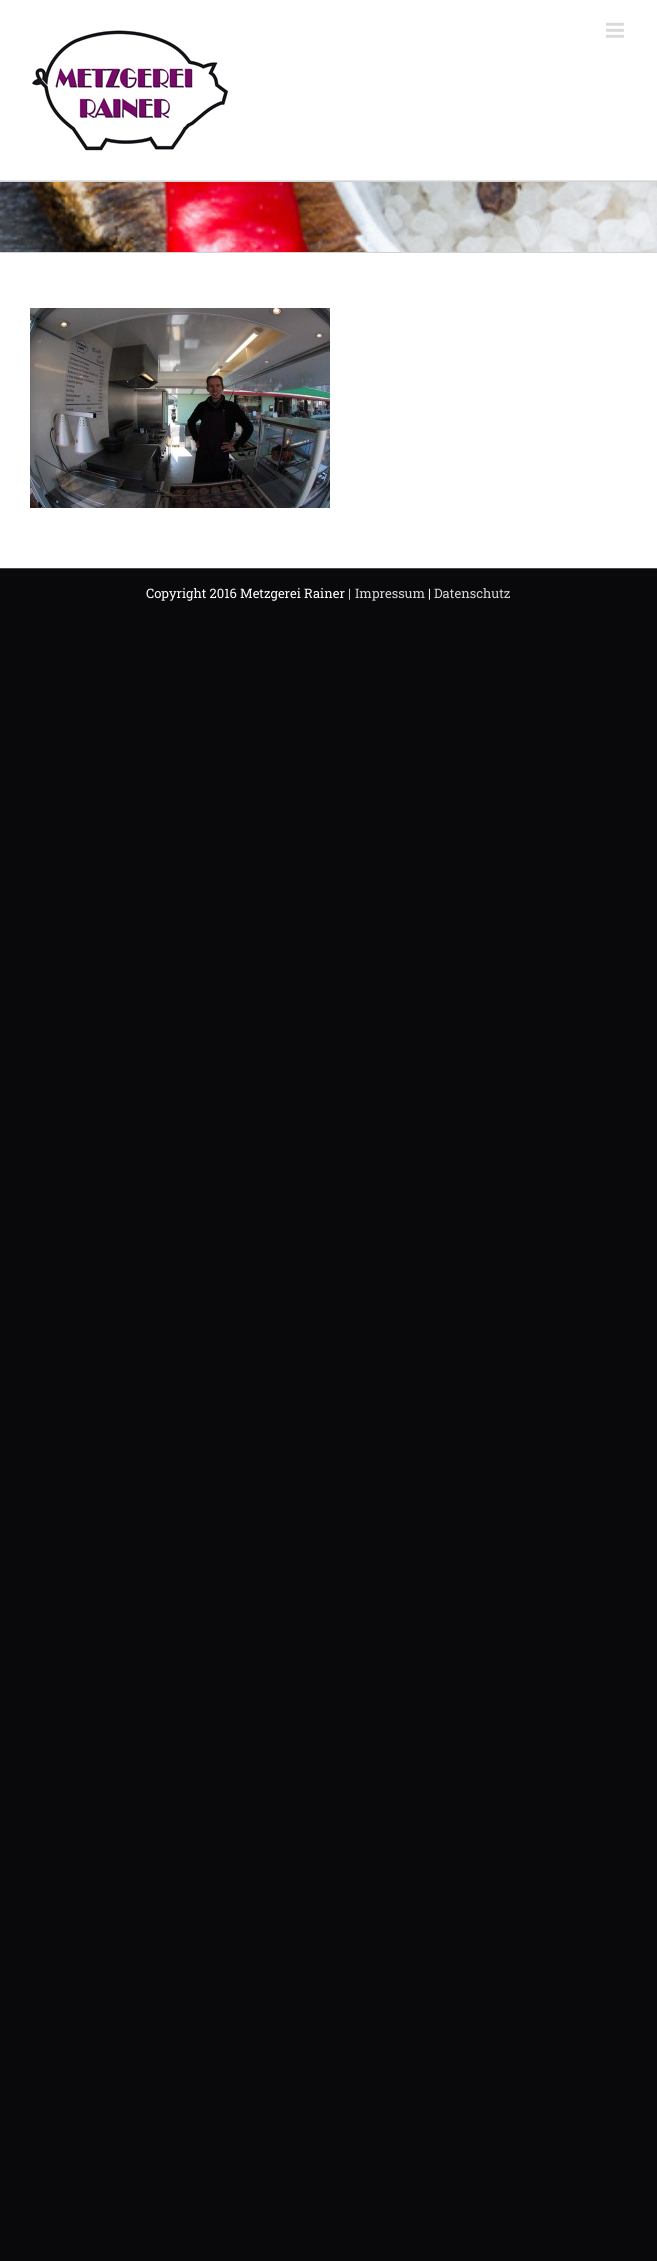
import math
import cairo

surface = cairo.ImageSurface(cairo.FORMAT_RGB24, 657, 2261)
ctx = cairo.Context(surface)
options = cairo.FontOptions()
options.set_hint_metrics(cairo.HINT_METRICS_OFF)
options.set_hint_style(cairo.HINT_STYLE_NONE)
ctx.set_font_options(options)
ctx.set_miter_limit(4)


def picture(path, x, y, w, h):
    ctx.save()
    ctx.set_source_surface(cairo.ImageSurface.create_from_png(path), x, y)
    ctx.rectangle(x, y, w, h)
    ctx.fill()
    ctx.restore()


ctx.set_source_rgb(0.039, 0.039, 0.047)
ctx.paint()
ctx.set_source_rgb(1, 1, 1)
ctx.rectangle(0, 0, 657, 180)
ctx.fill()
ctx.set_source_rgb(0.898, 0.898, 0.898)
ctx.rectangle(0, 180, 657, 1)
ctx.fill()
picture("img1.png", 32, 30, 196, 121)
picture("img2.png", 606, 22, 18, 16)
picture("img3.png", 0, 182, 657, 70)
ctx.set_source_rgb(0.824, 0.827, 0.831)
ctx.rectangle(0, 181, 657, 1)
ctx.fill()
ctx.rectangle(0, 252, 657, 1)
ctx.fill()
ctx.set_source_rgb(1, 1, 1)
ctx.rectangle(0, 253, 657, 315)
ctx.fill()
picture("img4.png", 30, 308, 300, 200)
ctx.set_source_rgb(0.294, 0.298, 0.302)
ctx.rectangle(0, 568, 657, 1)
ctx.fill()
ctx.select_font_face("Roboto Slab")
ctx.set_font_size(13)
ctx.set_source_rgb(1, 1, 1)
ctx.move_to(146, 598)
ctx.show_text("Copyright 2016 Metzgerei Rainer |")
ctx.set_source_rgb(0.839, 0.839, 0.839)
ctx.move_to(355, 598)
ctx.show_text("Impressum")
ctx.set_source_rgb(1, 1, 1)
ctx.move_to(428, 598)
ctx.show_text("|")
ctx.set_source_rgb(0.839, 0.839, 0.839)
ctx.move_to(434, 598)
ctx.show_text("Datenschutz")
surface.write_to_png("page.png")
